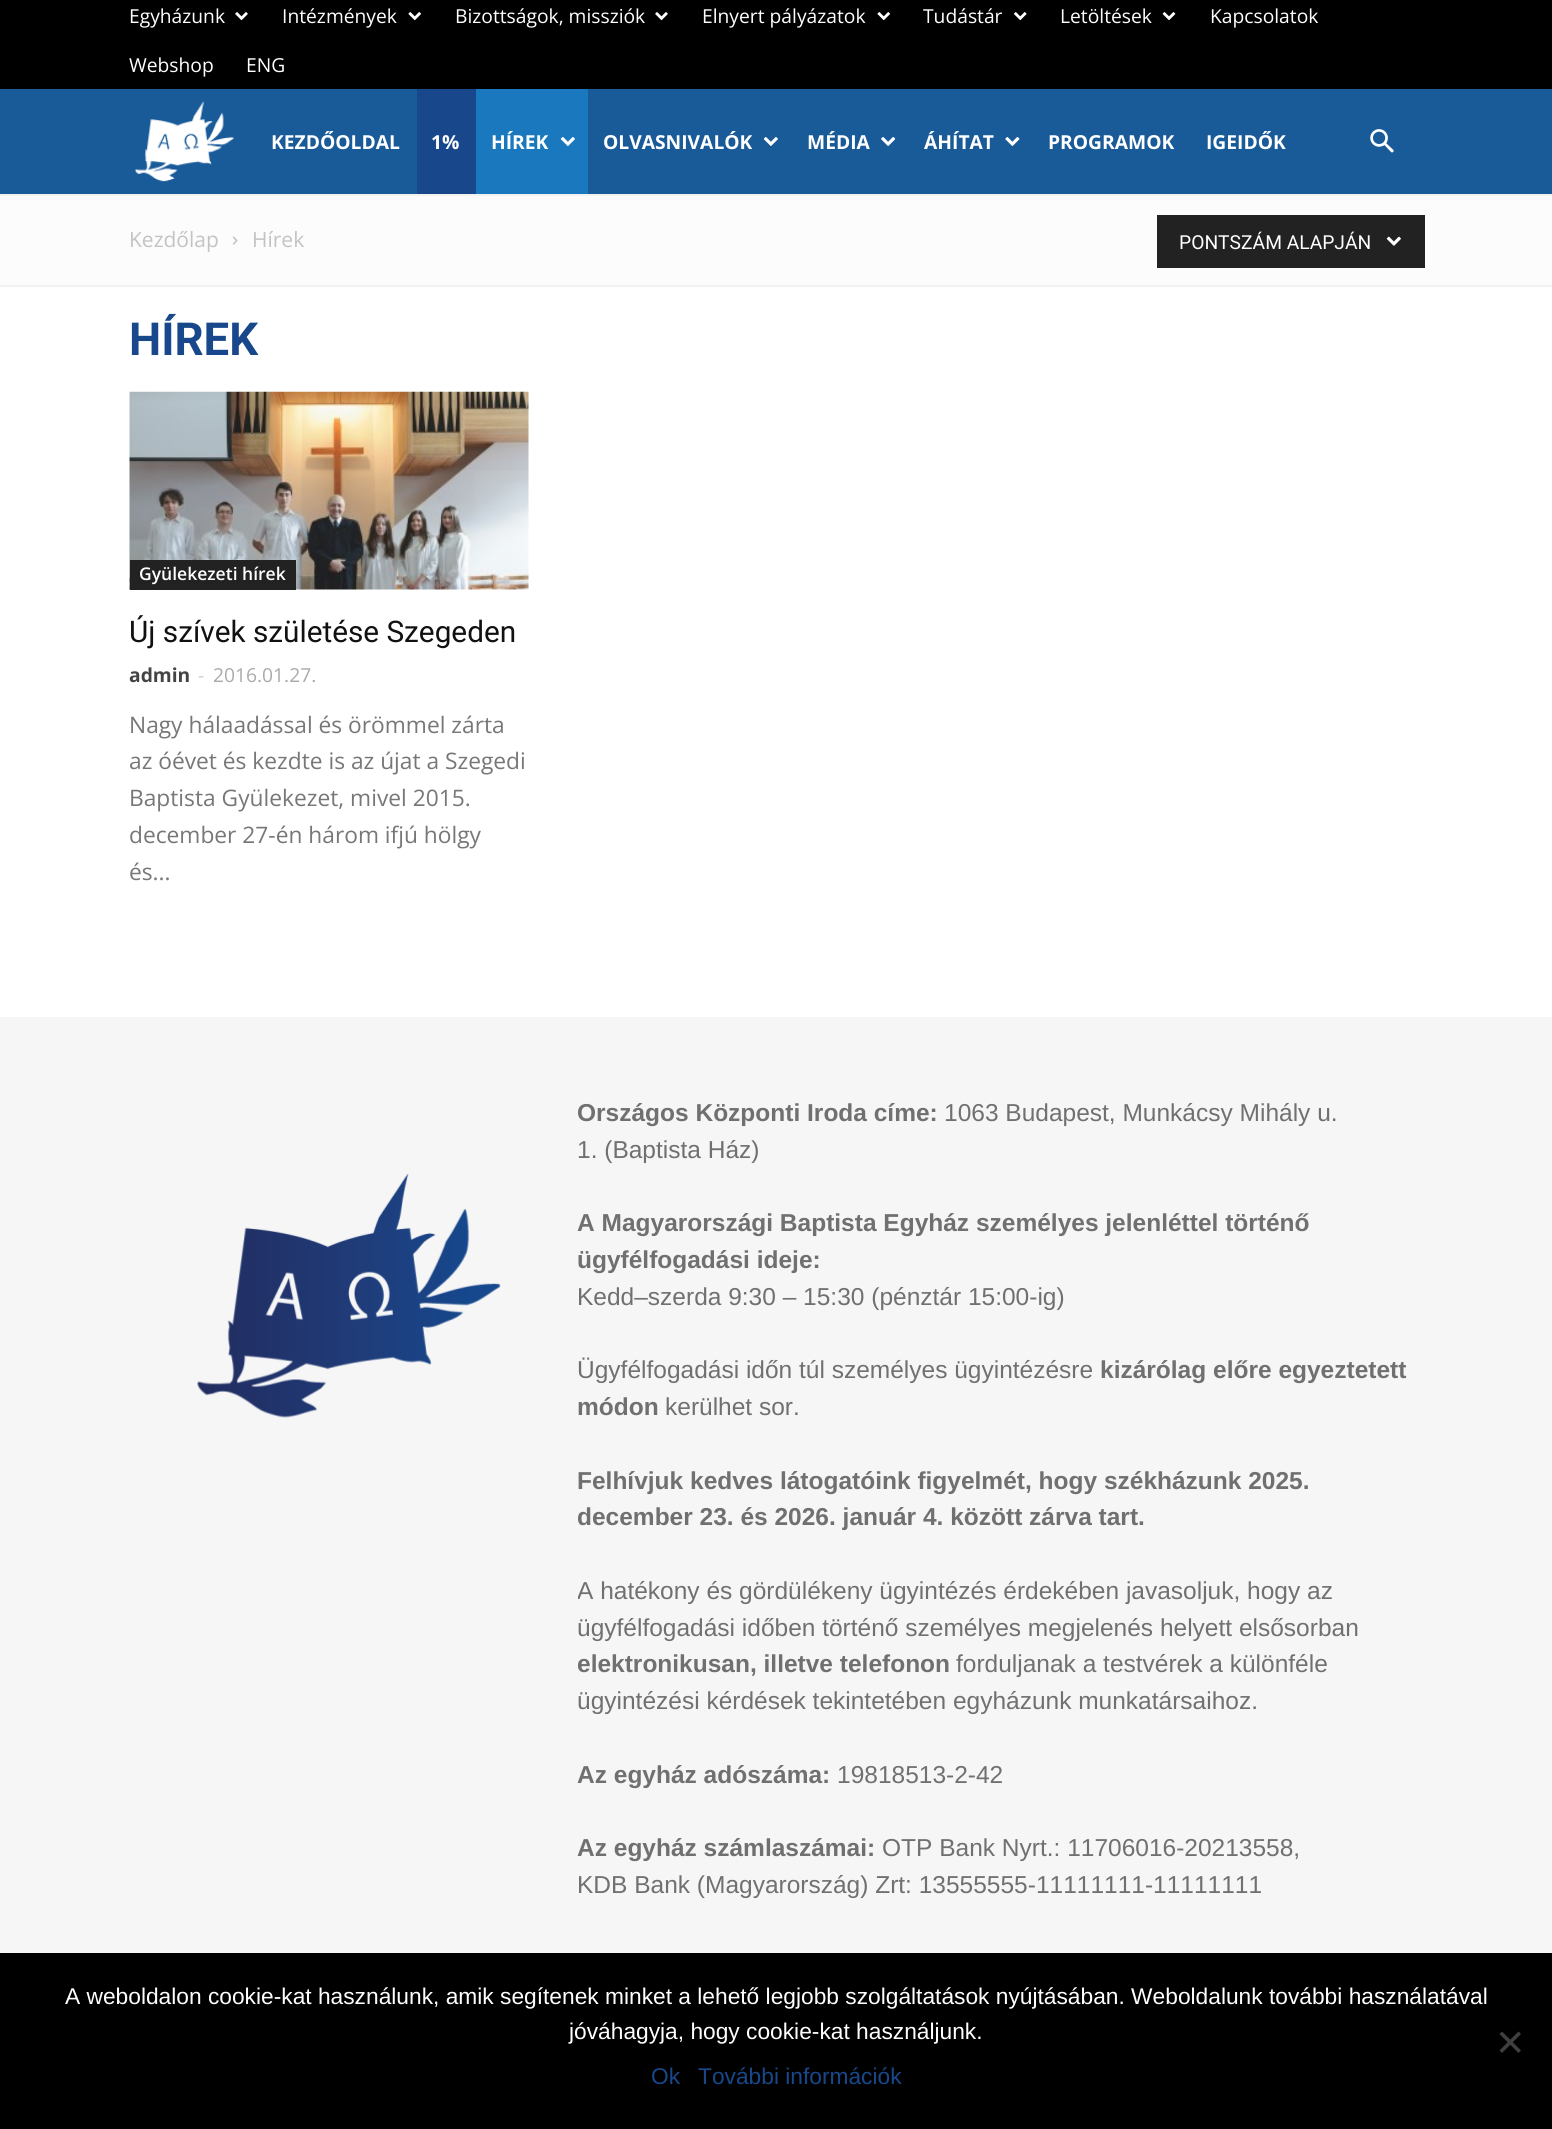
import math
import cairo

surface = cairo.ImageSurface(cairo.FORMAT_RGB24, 1552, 2129)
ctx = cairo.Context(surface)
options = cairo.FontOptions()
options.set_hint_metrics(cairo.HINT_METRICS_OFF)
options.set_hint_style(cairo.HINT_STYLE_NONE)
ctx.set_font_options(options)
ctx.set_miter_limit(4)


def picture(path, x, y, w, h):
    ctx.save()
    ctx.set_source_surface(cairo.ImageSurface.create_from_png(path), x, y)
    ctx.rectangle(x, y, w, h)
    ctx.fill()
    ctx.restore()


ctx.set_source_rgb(1, 1, 1)
ctx.paint()
ctx.set_source_rgb(0, 0, 0)
ctx.rectangle(0, 0, 1552, 89)
ctx.fill()
ctx.select_font_face("Open Sans")
ctx.set_font_size(19.25)
ctx.set_source_rgb(1, 1, 1)
ctx.move_to(129, 23)
ctx.show_text("Egyházunk")
picture("img1.png", 235, 12, 13, 9)
ctx.move_to(282, 23)
ctx.show_text("Intézmények")
picture("img2.png", 408, 12, 13, 9)
ctx.move_to(455, 23)
ctx.show_text("Bizottságok, missziók")
picture("img1.png", 655, 12, 13, 9)
ctx.move_to(702, 23)
ctx.show_text("Elnyert pályázatok")
picture("img2.png", 877, 12, 13, 9)
ctx.move_to(923, 23)
ctx.show_text("Tudástár")
picture("img3.png", 1014, 12, 13, 9)
ctx.move_to(1060, 23)
ctx.show_text("Letöltések")
picture("img4.png", 1162, 12, 14, 8)
ctx.move_to(1210, 23)
ctx.show_text("Kapcsolatok")
ctx.move_to(129, 72)
ctx.show_text("Webshop")
ctx.move_to(246, 72)
ctx.show_text("ENG")
ctx.set_source_rgb(0.098, 0.353, 0.6)
ctx.rectangle(0, 89, 1552, 105)
ctx.fill()
picture("img5.png", 134, 101, 100, 81)
ctx.select_font_face("Open Sans", cairo.FONT_SLANT_NORMAL, cairo.FONT_WEIGHT_BOLD)
ctx.set_source_rgb(1, 1, 1)
ctx.move_to(271, 149)
ctx.show_text("KEZDŐOLDAL")
ctx.set_source_rgb(0.094, 0.282, 0.545)
ctx.rectangle(417, 89, 59, 105)
ctx.fill()
ctx.set_source_rgb(1, 1, 1)
ctx.move_to(431, 149)
ctx.show_text("1%")
ctx.set_source_rgb(0.102, 0.471, 0.745)
ctx.rectangle(476, 89, 112, 105)
ctx.fill()
ctx.set_source_rgb(1, 1, 1)
ctx.move_to(491, 149)
ctx.show_text("HÍREK")
picture("img6.png", 560, 137, 15, 9)
ctx.move_to(603, 149)
ctx.show_text("OLVASNIVALÓK")
picture("img7.png", 763, 137, 15, 9)
ctx.move_to(807, 149)
ctx.show_text("MÉDIA")
picture("img8.png", 881, 137, 15, 9)
ctx.move_to(924, 149)
ctx.show_text("ÁHÍTAT")
picture("img9.png", 1005, 137, 15, 9)
ctx.move_to(1048, 149)
ctx.show_text("PROGRAMOK")
ctx.move_to(1206, 149)
ctx.show_text("IGEIDŐK")
picture("img10.png", 1370, 129, 24, 24)
ctx.set_source_rgb(0.988, 0.988, 0.988)
ctx.rectangle(0, 196, 1552, 89)
ctx.fill()
ctx.set_source_rgb(0.949, 0.949, 0.949)
ctx.rectangle(0, 194, 1552, 2)
ctx.fill()
ctx.rectangle(0, 285, 1552, 2)
ctx.fill()
ctx.select_font_face("Open Sans")
ctx.set_font_size(21)
ctx.set_source_rgb(0.765, 0.765, 0.765)
ctx.move_to(129, 247)
ctx.show_text("Kezdőlap")
picture("img11.png", 232, 236, 6, 9)
ctx.move_to(252, 247)
ctx.show_text("Hírek")
ctx.set_source_rgb(0.133, 0.133, 0.133)
ctx.rectangle(1157, 215, 268, 53)
ctx.fill()
ctx.select_font_face("Roboto")
ctx.set_font_size(19.25)
ctx.set_source_rgb(1, 1, 1)
ctx.move_to(1179, 249)
ctx.show_text("PONTSZÁM ALAPJÁN")
picture("img12.png", 1386, 236, 15, 10)
ctx.select_font_face("Roboto", cairo.FONT_SLANT_NORMAL, cairo.FONT_WEIGHT_BOLD)
ctx.set_font_size(45.5)
ctx.set_source_rgb(0.094, 0.282, 0.545)
ctx.move_to(129, 355)
ctx.show_text("HÍREK")
picture("img13.png", 129, 391, 400, 199)
ctx.set_source_rgb(0.133, 0.133, 0.133)
ctx.rectangle(130, 560, 166, 30)
ctx.fill()
ctx.select_font_face("Open Sans SemiBold")
ctx.set_font_size(17.5)
ctx.set_source_rgb(1, 1, 1)
ctx.move_to(139, 580)
ctx.show_text("Gyülekezeti hírek")
ctx.select_font_face("Roboto")
ctx.set_font_size(29.75)
ctx.set_source_rgb(0.067, 0.067, 0.067)
ctx.move_to(129, 642)
ctx.show_text("Új szívek születése Szegeden")
ctx.select_font_face("Open Sans", cairo.FONT_SLANT_NORMAL, cairo.FONT_WEIGHT_BOLD)
ctx.set_font_size(19.25)
ctx.set_source_rgb(0.267, 0.267, 0.267)
ctx.move_to(129, 682)
ctx.show_text("admin")
ctx.select_font_face("Open Sans")
ctx.set_source_rgb(0.8, 0.8, 0.8)
ctx.move_to(198, 682)
ctx.show_text("-")
ctx.set_source_rgb(0.667, 0.667, 0.667)
ctx.move_to(213, 682)
ctx.show_text("2016.01.27.")
ctx.set_font_size(22.75)
ctx.set_source_rgb(0.467, 0.467, 0.467)
ctx.move_to(129, 733)
ctx.show_text("Nagy hálaadással és örömmel zárta")
ctx.move_to(129, 769)
ctx.show_text("az óévet és kezdte is az újat a Szegedi")
ctx.move_to(129, 806)
ctx.show_text("Baptista Gyülekezet, mivel 2015.")
ctx.move_to(129, 843)
ctx.show_text("december 27-én három ifjú hölgy")
ctx.move_to(129, 880)
ctx.show_text("és...")
ctx.set_source_rgb(0.961, 0.961, 0.961)
ctx.rectangle(0, 1017, 1552, 936)
ctx.fill()
picture("img14.png", 197, 1173, 304, 245)
ctx.save()
ctx.rectangle(578, 1096, 847, 992)
ctx.clip()
ctx.select_font_face("Liberation Sans", cairo.FONT_SLANT_NORMAL, cairo.FONT_WEIGHT_BOLD)
ctx.set_font_size(24.5)
ctx.set_source_rgb(0.439, 0.439, 0.439)
ctx.move_to(577, 1121)
ctx.show_text("Országos Központi Iroda címe:")
ctx.restore()
ctx.select_font_face("Liberation Sans")
ctx.set_font_size(24.5)
ctx.set_source_rgb(0.439, 0.439, 0.439)
ctx.move_to(944, 1121)
ctx.show_text("1063 Budapest, Munkácsy Mihály u.")
ctx.move_to(577, 1158)
ctx.show_text("1. (Baptista Ház)")
ctx.select_font_face("Liberation Sans", cairo.FONT_SLANT_NORMAL, cairo.FONT_WEIGHT_BOLD)
ctx.move_to(577, 1231)
ctx.show_text("A Magyarországi Baptista Egyház személyes jelenléttel történő")
ctx.move_to(577, 1268)
ctx.show_text("ügyfélfogadási ideje:")
ctx.select_font_face("Liberation Sans")
ctx.move_to(577, 1305)
ctx.show_text("Kedd–szerda 9:30 – 15:30 (pénztár 15:00-ig)")
ctx.move_to(577, 1378)
ctx.show_text("Ügyfélfogadási időn túl személyes ügyintézésre")
ctx.select_font_face("Liberation Sans", cairo.FONT_SLANT_NORMAL, cairo.FONT_WEIGHT_BOLD)
ctx.move_to(1100, 1378)
ctx.show_text("kizárólag előre egyeztetett")
ctx.move_to(577, 1415)
ctx.show_text("módon")
ctx.select_font_face("Liberation Sans")
ctx.move_to(665, 1415)
ctx.show_text("kerülhet sor.")
ctx.select_font_face("Liberation Sans", cairo.FONT_SLANT_NORMAL, cairo.FONT_WEIGHT_BOLD)
ctx.move_to(577, 1489)
ctx.show_text("Felhívjuk kedves látogatóink figyelmét, hogy székházunk 2025.")
ctx.save()
ctx.rectangle(578, 1096, 847, 992)
ctx.clip()
ctx.move_to(577, 1525)
ctx.show_text("december 23. és 2026. január 4. között zárva tart.")
ctx.select_font_face("Liberation Sans")
ctx.move_to(577, 1599)
ctx.show_text("A hatékony és gördülékeny ügyintézés érdekében javasoljuk, hogy az")
ctx.restore()
ctx.select_font_face("Liberation Sans")
ctx.move_to(577, 1636)
ctx.show_text("ügyfélfogadási időben történő személyes megjelenés helyett elsősorban")
ctx.save()
ctx.rectangle(578, 1096, 847, 992)
ctx.clip()
ctx.select_font_face("Liberation Sans", cairo.FONT_SLANT_NORMAL, cairo.FONT_WEIGHT_BOLD)
ctx.move_to(577, 1672)
ctx.show_text("elektronikusan, illetve telefonon")
ctx.restore()
ctx.move_to(956, 1672)
ctx.show_text("forduljanak a testvérek a különféle")
ctx.move_to(577, 1709)
ctx.show_text("ügyintézési kérdések tekintetében egyházunk munkatársaihoz.")
ctx.select_font_face("Liberation Sans", cairo.FONT_SLANT_NORMAL, cairo.FONT_WEIGHT_BOLD)
ctx.move_to(577, 1783)
ctx.show_text("Az egyház adószáma:")
ctx.select_font_face("Liberation Sans")
ctx.move_to(837, 1783)
ctx.show_text("19818513-2-42")
ctx.select_font_face("Liberation Sans", cairo.FONT_SLANT_NORMAL, cairo.FONT_WEIGHT_BOLD)
ctx.move_to(577, 1856)
ctx.show_text("Az egyház számlaszámai:")
ctx.select_font_face("Liberation Sans")
ctx.move_to(882, 1856)
ctx.show_text("OTP Bank Nyrt.: 11706016-20213558,")
ctx.move_to(577, 1893)
ctx.show_text("KDB Bank (Magyarország) Zrt: 13555555-11111111-11111111")
ctx.set_source_rgb(0, 0, 0)
ctx.rectangle(0, 1953, 1552, 176)
ctx.fill()
ctx.set_font_size(22.75)
ctx.set_source_rgb(1, 1, 1)
ctx.move_to(65, 2004)
ctx.show_text("A weboldalon cookie-kat használunk, amik segítenek minket a lehető legjobb szolgáltatások nyújtásában. Weboldalunk további használatával")
ctx.move_to(569, 2039)
ctx.show_text("jóváhagyja, hogy cookie-kat használjunk.")
ctx.set_source_rgb(0.251, 0.251, 0.251)
ctx.new_path()
ctx.move_to(1518.5, 2031.5)
ctx.line_to(1521, 2034)
ctx.line_to(1502, 2053)
ctx.line_to(1499.5, 2050.5)
ctx.close_path()
ctx.fill()
ctx.new_path()
ctx.move_to(1499.5, 2034)
ctx.line_to(1502, 2031.5)
ctx.line_to(1521, 2050.5)
ctx.line_to(1518.5, 2053)
ctx.close_path()
ctx.fill()
ctx.set_source_rgb(0.094, 0.282, 0.545)
ctx.move_to(651, 2084)
ctx.show_text("Ok")
ctx.move_to(698, 2084)
ctx.show_text("További információk")
surface.write_to_png("page.png")
